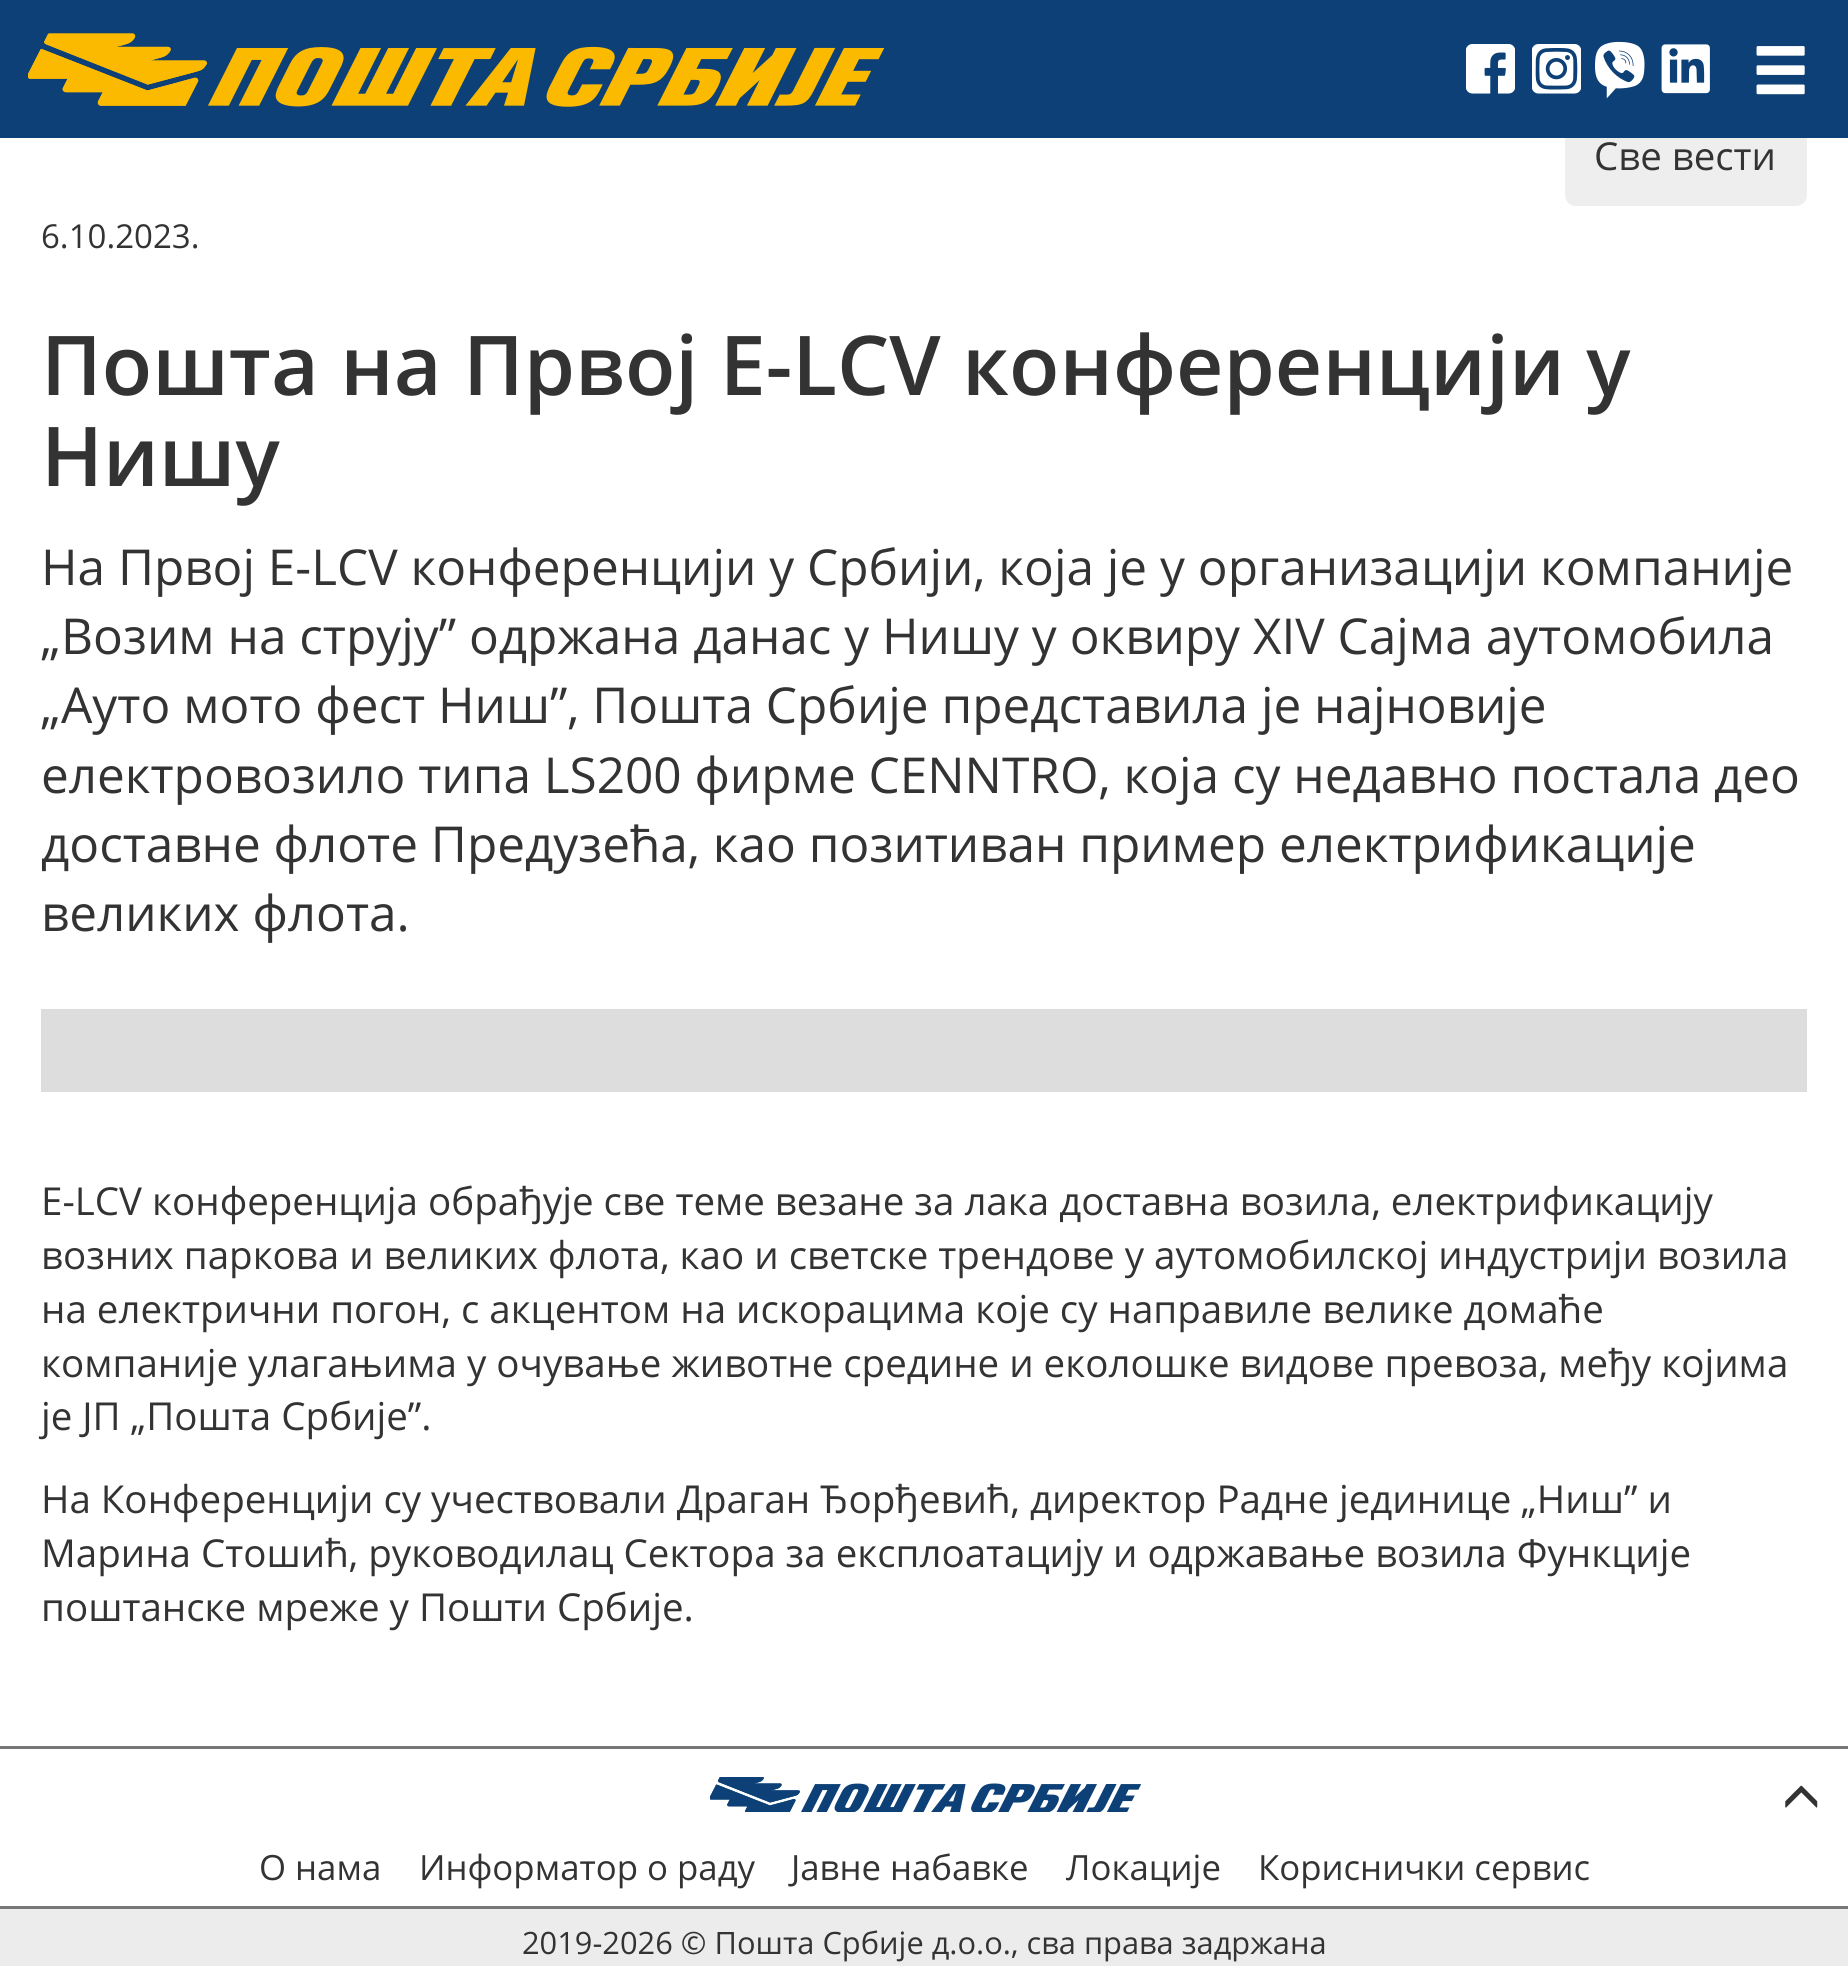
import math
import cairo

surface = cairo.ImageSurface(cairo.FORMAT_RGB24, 1848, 1966)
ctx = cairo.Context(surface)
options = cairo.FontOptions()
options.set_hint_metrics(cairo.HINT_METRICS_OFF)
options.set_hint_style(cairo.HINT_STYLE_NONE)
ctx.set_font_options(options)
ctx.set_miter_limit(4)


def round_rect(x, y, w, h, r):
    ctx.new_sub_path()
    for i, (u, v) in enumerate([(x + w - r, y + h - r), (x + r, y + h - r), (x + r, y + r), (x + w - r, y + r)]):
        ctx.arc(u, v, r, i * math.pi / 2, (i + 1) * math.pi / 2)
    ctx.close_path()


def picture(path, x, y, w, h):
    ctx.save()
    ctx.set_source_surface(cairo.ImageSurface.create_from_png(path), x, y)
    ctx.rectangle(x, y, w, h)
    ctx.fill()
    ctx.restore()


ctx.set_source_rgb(1, 1, 1)
ctx.paint()
ctx.set_source_rgb(0.933, 0.933, 0.933)
round_rect(1565, 107, 242, 99, 11)
ctx.fill()
ctx.set_source_rgb(0.047, 0.251, 0.463)
ctx.rectangle(0, 0, 1848, 138)
ctx.fill()
picture("img1.png", 28, 33, 857, 74)
picture("img2.png", 1466, 44, 49, 50)
picture("img3.png", 1532, 44, 49, 50)
picture("img4.png", 1595, 41, 50, 58)
picture("img5.png", 1661, 44, 49, 50)
picture("img6.png", 1756, 46, 49, 49)
ctx.select_font_face("Open Sans")
ctx.set_font_size(38.5)
ctx.set_source_rgb(0.2, 0.2, 0.2)
ctx.move_to(1594, 170)
ctx.show_text("Све вести")
ctx.set_font_size(33)
ctx.move_to(41, 248)
ctx.show_text("6.10.2023.")
ctx.select_font_face("Open Sans SemiBold")
ctx.set_font_size(82.5)
ctx.move_to(41, 395)
ctx.show_text("Пошта на Првој E-LCV конференцији у")
ctx.move_to(41, 486)
ctx.show_text("Нишу")
ctx.select_font_face("Open Sans")
ctx.set_font_size(49.5)
ctx.move_to(41, 585)
ctx.show_text("На Првој E-LCV конференцији у Србији, која је у организацији компаније")
ctx.move_to(41, 654)
ctx.show_text("„Возим на струју” одржана данас у Нишу у оквиру XIV Сајма аутомобила")
ctx.move_to(41, 723)
ctx.show_text("„Ауто мото фест Ниш”, Пошта Србије представила је најновије")
ctx.move_to(41, 793)
ctx.show_text("електровозило типа LS200 фирме CENNTRO, која су недавно постала део")
ctx.move_to(41, 862)
ctx.show_text("доставне флоте Предузећа, као позитиван пример електрификације")
ctx.move_to(41, 931)
ctx.show_text("великих флота.")
ctx.set_source_rgb(0.867, 0.867, 0.867)
ctx.rectangle(41, 1009, 1766, 83)
ctx.fill()
ctx.set_font_size(38.5)
ctx.set_source_rgb(0.2, 0.2, 0.2)
ctx.move_to(41, 1215)
ctx.show_text("E-LCV конференција обрађује све теме везане за лака доставна возила, електрификацију")
ctx.move_to(41, 1269)
ctx.show_text("возних паркова и великих флота, као и светске трендове у аутомобилској индустрији возила")
ctx.move_to(41, 1323)
ctx.show_text("на електрични погон, с акцентом на искорацима које су направиле велике домаће")
ctx.move_to(41, 1377)
ctx.show_text("компаније улагањима у очување животне средине и еколошке видове превоза, међу којима")
ctx.move_to(41, 1430)
ctx.show_text("је ЈП „Пошта Србије”.")
ctx.move_to(41, 1513)
ctx.show_text("На Конференцији су учествовали Драган Ђорђевић, директор Радне јединице „Ниш” и")
ctx.move_to(41, 1567)
ctx.show_text("Марина Стошић, руководилац Сектора за експлоатацију и одржавање возила Функције")
ctx.move_to(41, 1621)
ctx.show_text("поштанске мреже у Пошти Србије.")
ctx.set_source_rgb(0.467, 0.467, 0.467)
ctx.rectangle(0, 1746, 1848, 3)
ctx.fill()
ctx.rectangle(0, 1906, 1848, 3)
ctx.fill()
picture("img7.png", 710, 1777, 431, 35)
picture("img8.png", 1785, 1785, 33, 23)
ctx.set_font_size(34.75)
ctx.set_source_rgb(0.2, 0.2, 0.2)
ctx.move_to(259, 1880)
ctx.show_text("О нама")
ctx.move_to(419, 1880)
ctx.show_text("Информатор о раду")
ctx.move_to(791, 1880)
ctx.show_text("Јавне набавке")
ctx.move_to(1066, 1880)
ctx.show_text("Локације")
ctx.move_to(1258, 1880)
ctx.show_text("Кориснички сервис")
ctx.set_source_rgb(0.925, 0.925, 0.925)
ctx.rectangle(0, 1909, 1848, 57)
ctx.fill()
ctx.set_font_size(30.8)
ctx.set_source_rgb(0.2, 0.2, 0.2)
ctx.move_to(522, 1954)
ctx.show_text("2019-2026 © Пошта Србије д.о.о., сва права задржана")
surface.write_to_png("page.png")
